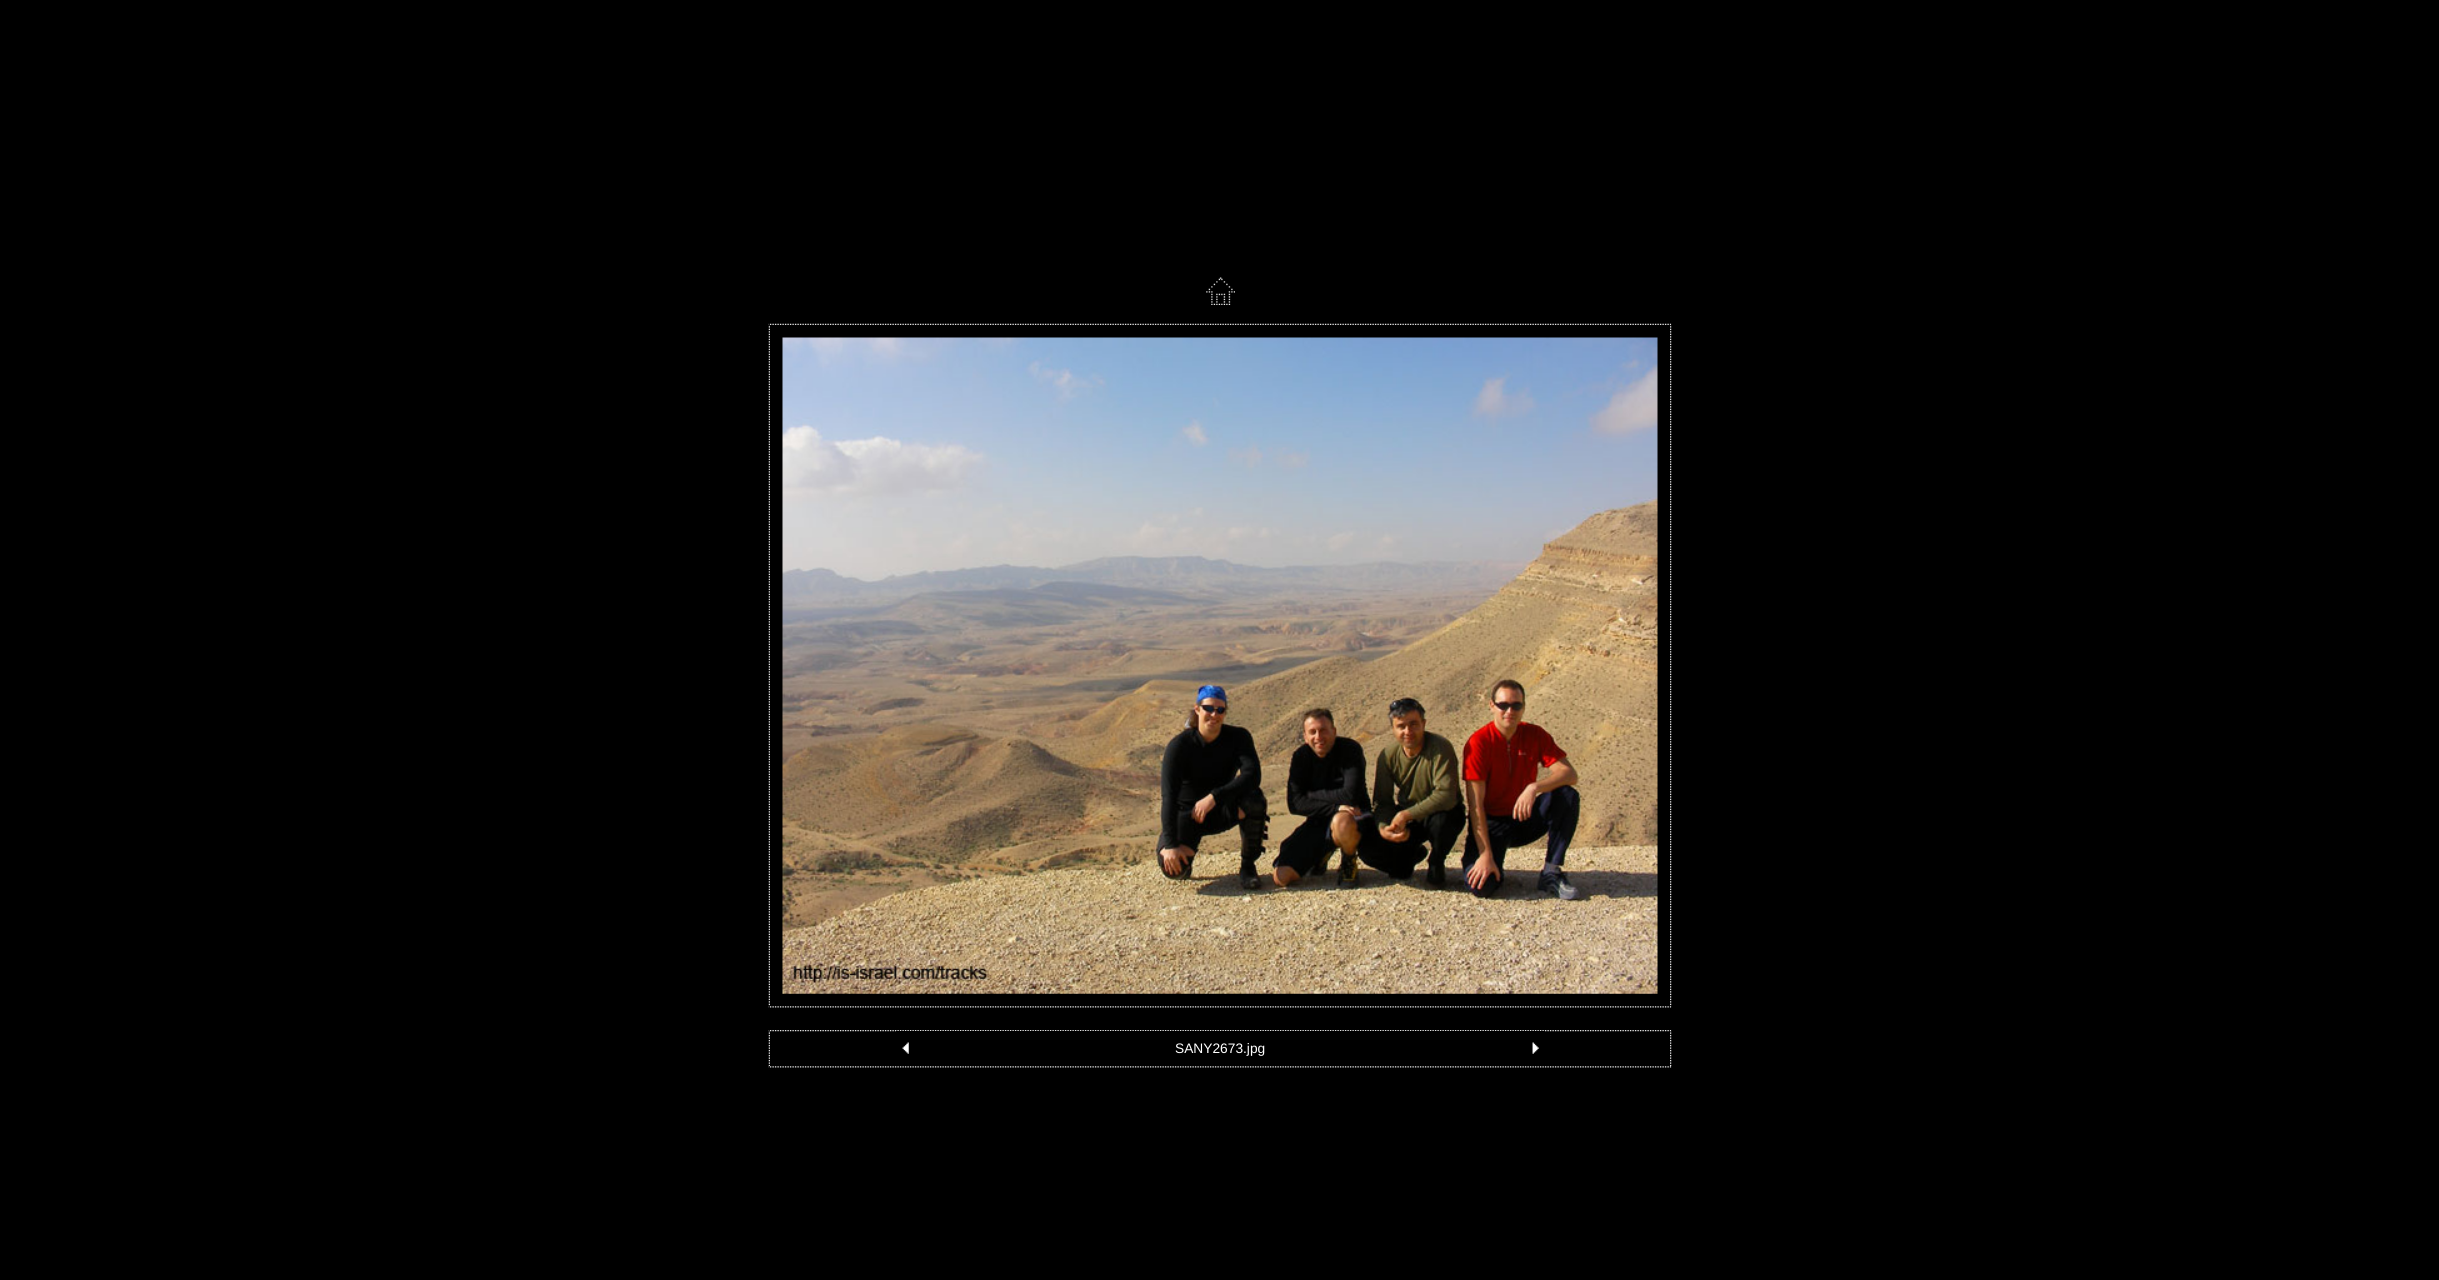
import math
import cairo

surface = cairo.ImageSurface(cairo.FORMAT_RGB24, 2439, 1280)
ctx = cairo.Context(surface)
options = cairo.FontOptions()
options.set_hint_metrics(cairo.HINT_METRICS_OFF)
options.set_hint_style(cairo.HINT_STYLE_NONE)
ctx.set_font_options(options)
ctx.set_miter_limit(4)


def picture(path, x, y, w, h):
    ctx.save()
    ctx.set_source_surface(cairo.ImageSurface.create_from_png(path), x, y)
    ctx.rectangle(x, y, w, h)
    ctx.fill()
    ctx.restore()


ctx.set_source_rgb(0, 0, 0)
ctx.paint()
picture("img1.png", 1206, 277, 29, 28)
picture("img2.png", 768, 323, 904, 2)
picture("img3.png", 768, 325, 2, 682)
picture("img4.png", 782, 337, 876, 657)
picture("img5.png", 1670, 325, 2, 682)
picture("img6.png", 768, 1006, 904, 2)
picture("img7.png", 768, 1030, 904, 2)
picture("img8.png", 768, 1031, 2, 36)
ctx.set_source_rgb(0, 0, 0)
ctx.rectangle(896, 1031, 649, 1)
ctx.fill()
picture("img9.png", 902, 1042, 7, 12)
ctx.select_font_face("Liberation Sans")
ctx.set_font_size(13.75)
ctx.set_source_rgb(1, 1, 1)
ctx.move_to(1175, 1053)
ctx.show_text("SANY2673.jpg")
picture("img10.png", 1532, 1042, 7, 12)
picture("img11.png", 1670, 1031, 2, 36)
picture("img12.png", 768, 1066, 904, 2)
surface.write_to_png("page.png")
